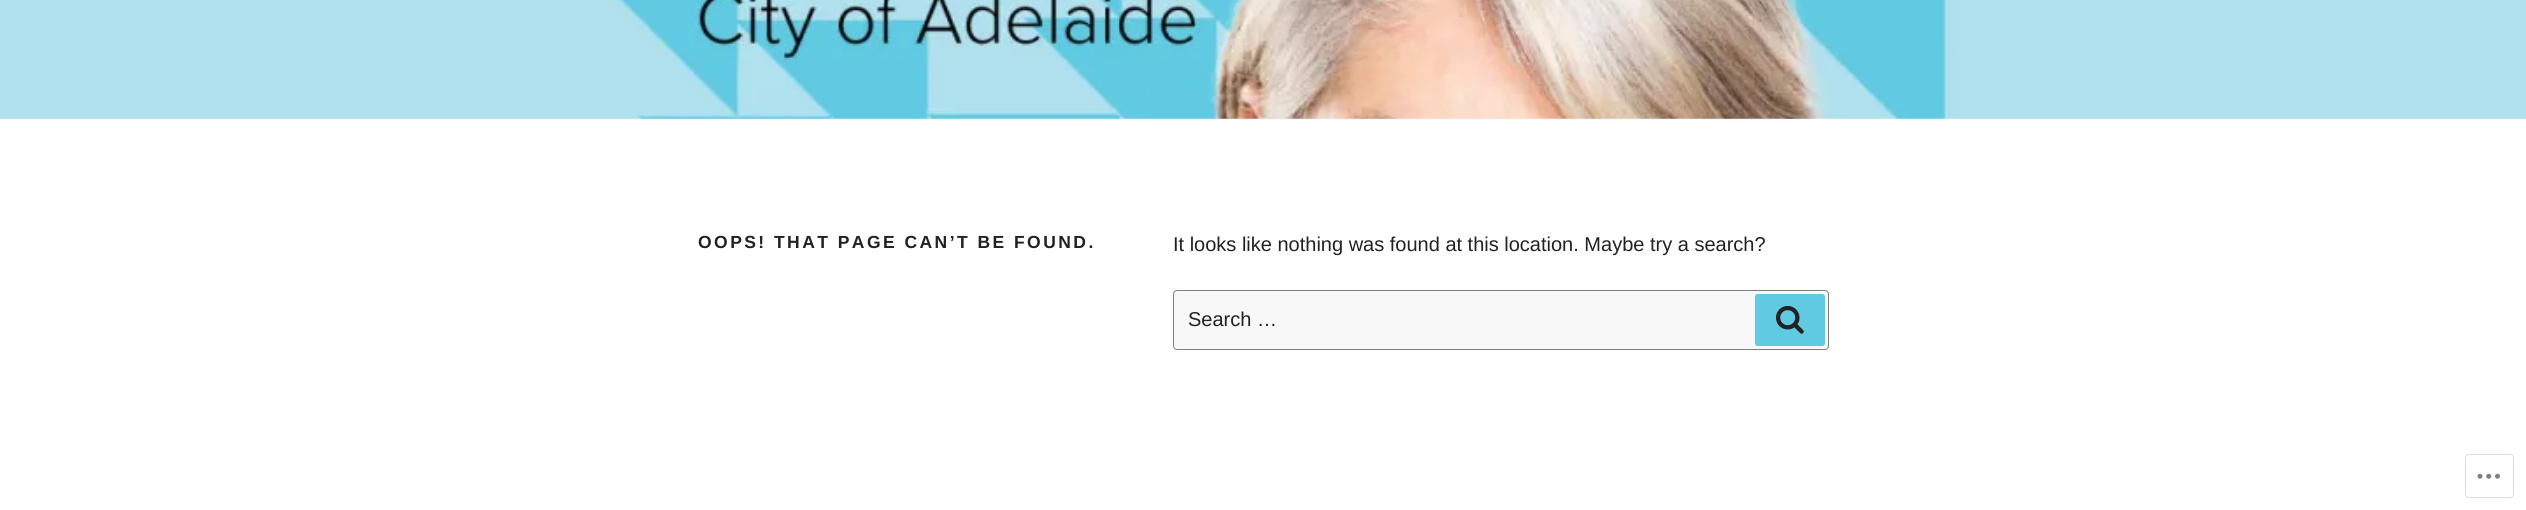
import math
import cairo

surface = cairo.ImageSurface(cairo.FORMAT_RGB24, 2526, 510)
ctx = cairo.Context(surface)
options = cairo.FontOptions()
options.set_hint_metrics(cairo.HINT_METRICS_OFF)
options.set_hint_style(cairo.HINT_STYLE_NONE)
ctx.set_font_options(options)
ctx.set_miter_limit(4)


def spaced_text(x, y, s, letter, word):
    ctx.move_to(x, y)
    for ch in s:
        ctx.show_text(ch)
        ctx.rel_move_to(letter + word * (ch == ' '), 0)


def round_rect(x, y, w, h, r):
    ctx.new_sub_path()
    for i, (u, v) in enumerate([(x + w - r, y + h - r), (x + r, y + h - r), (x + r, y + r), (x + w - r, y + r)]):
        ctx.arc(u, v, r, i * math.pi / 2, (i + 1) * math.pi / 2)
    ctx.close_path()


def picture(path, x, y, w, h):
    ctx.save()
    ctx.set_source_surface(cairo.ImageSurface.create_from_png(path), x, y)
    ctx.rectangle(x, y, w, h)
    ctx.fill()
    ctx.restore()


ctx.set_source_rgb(1, 1, 1)
ctx.paint()
ctx.set_source_rgb(0.976, 0.976, 0.976)
ctx.rectangle(0, 118, 2526, 2)
ctx.fill()
picture("img1.png", 0, 0, 2526, 119)
ctx.select_font_face("Arimo", cairo.FONT_SLANT_NORMAL, cairo.FONT_WEIGHT_BOLD)
ctx.set_font_size(17.5)
ctx.set_source_rgb(0.133, 0.133, 0.133)
spaced_text(698, 248, "OOPS! THAT PAGE CAN’T BE FOUND.", 2.45, 0)
ctx.select_font_face("Arimo")
ctx.set_font_size(20)
ctx.move_to(1173, 251)
ctx.show_text("It looks like nothing was found at this location. Maybe try a search?")
ctx.set_source_rgb(0.969, 0.969, 0.969)
round_rect(1173.5, 290.5, 655, 59, 3.5)
ctx.fill_preserve()
ctx.set_source_rgb(0.498, 0.498, 0.498)
ctx.set_line_width(1)
ctx.stroke()
ctx.set_source_rgb(0.133, 0.133, 0.133)
ctx.move_to(1188, 326)
ctx.show_text("Search …")
ctx.set_source_rgb(0.376, 0.792, 0.886)
round_rect(1755, 294, 70, 52, 2.5)
ctx.fill()
picture("img2.png", 1775, 305, 29, 29)
round_rect(2465.5, 454.5, 48, 43, 3.5)
ctx.set_source_rgb(0.867, 0.867, 0.875)
ctx.stroke()
picture("img3.png", 2477, 473, 23, 6)
surface.write_to_png("page.png")
